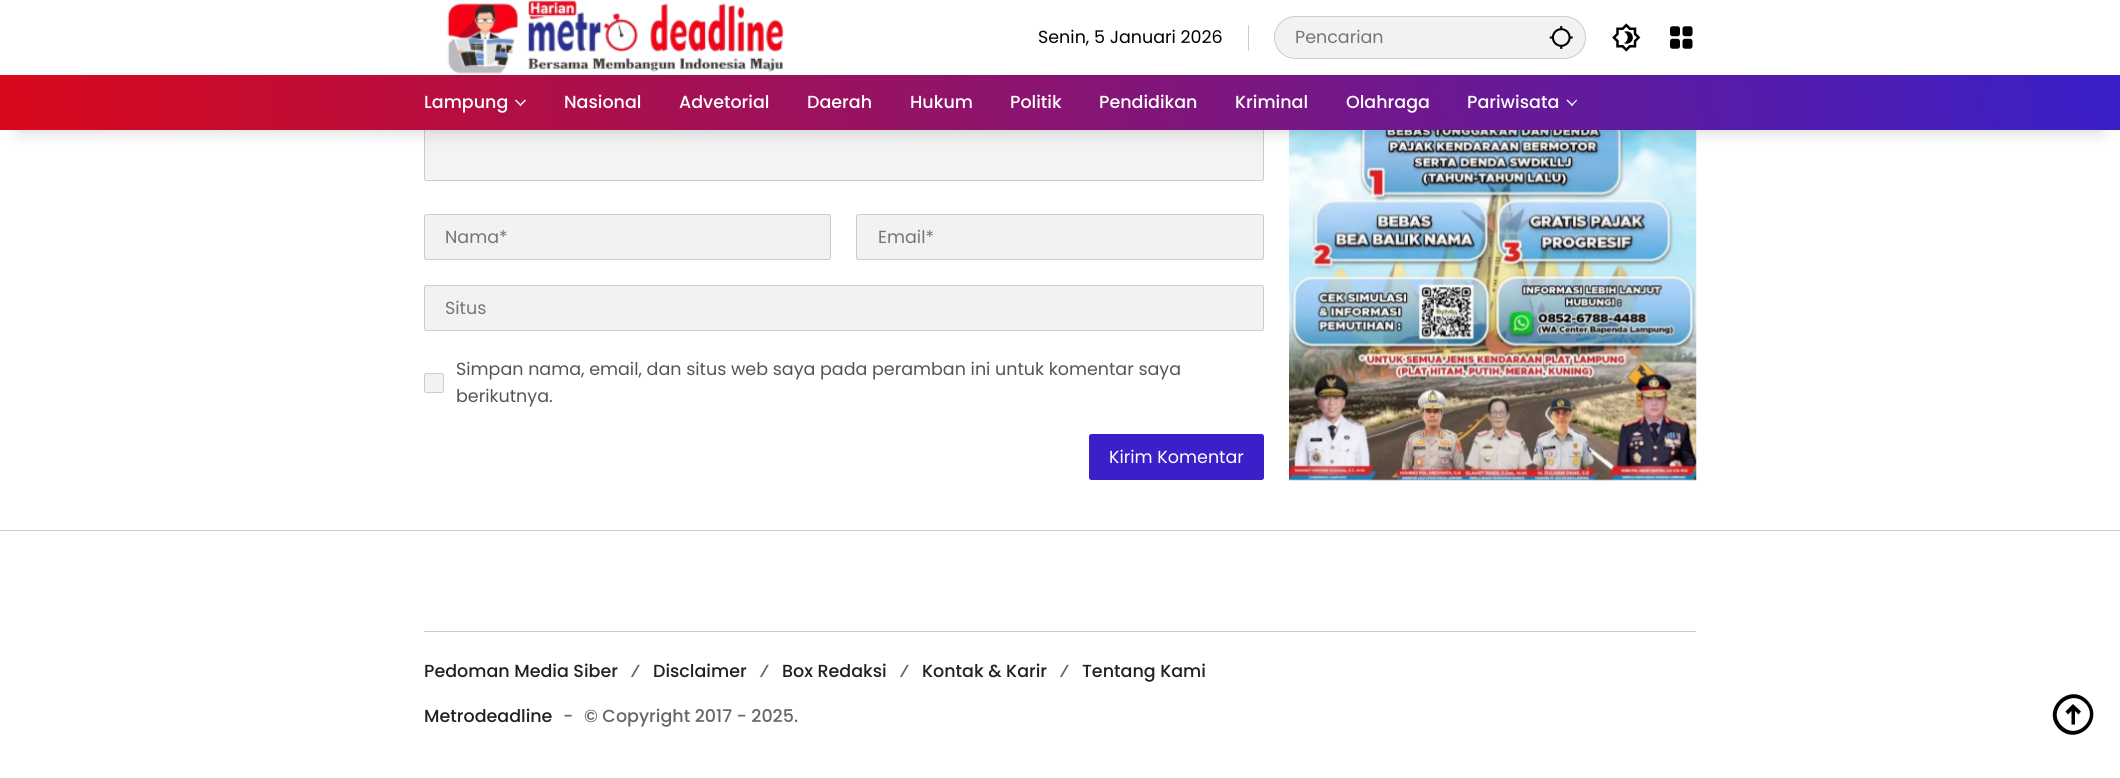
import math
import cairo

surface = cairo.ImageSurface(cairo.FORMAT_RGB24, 2120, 778)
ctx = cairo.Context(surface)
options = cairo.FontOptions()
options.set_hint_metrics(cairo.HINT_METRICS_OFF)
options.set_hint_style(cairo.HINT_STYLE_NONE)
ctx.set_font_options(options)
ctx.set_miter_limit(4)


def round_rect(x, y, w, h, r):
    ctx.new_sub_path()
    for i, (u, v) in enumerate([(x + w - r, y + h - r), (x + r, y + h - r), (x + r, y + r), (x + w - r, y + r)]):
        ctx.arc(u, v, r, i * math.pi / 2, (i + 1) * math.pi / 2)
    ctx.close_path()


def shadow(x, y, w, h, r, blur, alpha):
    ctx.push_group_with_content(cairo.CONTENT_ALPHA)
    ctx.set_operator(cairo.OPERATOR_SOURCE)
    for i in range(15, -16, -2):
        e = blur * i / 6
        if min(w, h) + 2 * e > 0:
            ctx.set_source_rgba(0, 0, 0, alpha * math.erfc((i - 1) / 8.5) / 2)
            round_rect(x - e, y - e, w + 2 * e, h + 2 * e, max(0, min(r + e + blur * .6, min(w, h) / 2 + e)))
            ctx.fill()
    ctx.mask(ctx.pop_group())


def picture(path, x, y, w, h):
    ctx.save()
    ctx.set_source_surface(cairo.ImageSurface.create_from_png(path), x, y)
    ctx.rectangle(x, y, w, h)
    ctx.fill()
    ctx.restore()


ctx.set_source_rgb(1, 1, 1)
ctx.paint()
ctx.set_source_rgb(0.953, 0.953, 0.953)
round_rect(424.5, 30.5, 839, 150, 2)
ctx.fill_preserve()
ctx.set_source_rgb(0.8, 0.8, 0.8)
ctx.set_line_width(1)
ctx.stroke()
ctx.set_source_rgb(1, 1, 1)
ctx.rectangle(424, 30, 840, 45)
ctx.fill()
picture("img1.png", 447, 0, 337, 74)
ctx.set_source_rgb(0.8, 0.8, 0.8)
ctx.rectangle(1248, 25, 1, 26)
ctx.fill()
ctx.select_font_face("Poppins")
ctx.set_font_size(17.5)
ctx.set_source_rgb(0, 0, 0)
ctx.move_to(1038, 43)
ctx.show_text("Senin, 5 Januari 2026")
ctx.set_source_rgb(0.949, 0.949, 0.949)
round_rect(1274.5, 16.5, 311, 42, 21)
ctx.fill_preserve()
ctx.set_source_rgb(0.8, 0.8, 0.8)
ctx.stroke()
ctx.set_source_rgb(0.459, 0.459, 0.459)
ctx.move_to(1295, 43)
ctx.show_text("Pencarian")
picture("img2.png", 1549, 26, 24, 23)
picture("img3.png", 1612, 23, 29, 29)
picture("img4.png", 1670, 26, 23, 23)
picture("img5.png", 1289, 130, 408, 351)
ctx.set_source_rgb(0, 0, 0)
shadow(19, 113, 2082, 17, 0, 9.5, 0.2)
gradient = cairo.LinearGradient(27, 285, 2093, -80)
gradient.add_color_stop_rgba(0, 0.851, 0.035, 0.106, 1)
gradient.add_color_stop_rgba(1, 0.224, 0.125, 0.788, 1)
ctx.set_source(gradient)
ctx.rectangle(0, 75, 2120, 55)
ctx.fill()
ctx.select_font_face("Poppins Medium")
ctx.set_source_rgb(1, 1, 1)
ctx.move_to(424, 108)
ctx.show_text("Lampung")
ctx.new_path()
ctx.move_to(525, 99.5)
ctx.line_to(526, 100.5)
ctx.line_to(520.5, 106)
ctx.line_to(519.5, 105)
ctx.close_path()
ctx.fill()
ctx.new_path()
ctx.move_to(516, 99.5)
ctx.line_to(521.5, 105)
ctx.line_to(520.5, 106)
ctx.line_to(515, 100.5)
ctx.close_path()
ctx.fill()
ctx.move_to(564, 108)
ctx.show_text("Nasional")
ctx.move_to(679, 108)
ctx.show_text("Advetorial")
ctx.move_to(807, 108)
ctx.show_text("Daerah")
ctx.move_to(910, 108)
ctx.show_text("Hukum")
ctx.move_to(1010, 108)
ctx.show_text("Politik")
ctx.move_to(1099, 108)
ctx.show_text("Pendidikan")
ctx.move_to(1235, 108)
ctx.show_text("Kriminal")
ctx.move_to(1346, 108)
ctx.show_text("Olahraga")
ctx.move_to(1467, 108)
ctx.show_text("Pariwisata")
ctx.new_path()
ctx.move_to(1576.5, 99.5)
ctx.line_to(1577, 100.5)
ctx.line_to(1572, 106)
ctx.line_to(1571, 105)
ctx.close_path()
ctx.fill()
ctx.new_path()
ctx.move_to(1567.5, 99.5)
ctx.line_to(1573, 105)
ctx.line_to(1572, 106)
ctx.line_to(1566.5, 100.5)
ctx.close_path()
ctx.fill()
ctx.set_source_rgb(0.949, 0.949, 0.949)
round_rect(424.5, 214.5, 406, 45, 2)
ctx.fill_preserve()
ctx.set_source_rgb(0.8, 0.8, 0.8)
ctx.stroke()
ctx.select_font_face("Poppins")
ctx.set_source_rgb(0.459, 0.459, 0.459)
ctx.move_to(445, 243)
ctx.show_text("Nama*")
ctx.set_source_rgb(0.949, 0.949, 0.949)
round_rect(856.5, 214.5, 407, 45, 2)
ctx.fill_preserve()
ctx.set_source_rgb(0.8, 0.8, 0.8)
ctx.stroke()
ctx.set_source_rgb(0.459, 0.459, 0.459)
ctx.move_to(878, 243)
ctx.show_text("Email*")
ctx.set_source_rgb(0.949, 0.949, 0.949)
round_rect(424.5, 285.5, 839, 45, 2)
ctx.fill_preserve()
ctx.set_source_rgb(0.8, 0.8, 0.8)
ctx.stroke()
ctx.set_source_rgb(0.459, 0.459, 0.459)
ctx.move_to(445, 314)
ctx.show_text("Situs")
ctx.set_source_rgb(0.949, 0.949, 0.949)
round_rect(424.5, 373.5, 19, 19, 2)
ctx.fill_preserve()
ctx.set_source_rgb(0.8, 0.8, 0.8)
ctx.stroke()
ctx.set_source_rgb(0.333, 0.333, 0.333)
ctx.move_to(456, 375)
ctx.show_text("Simpan nama, email, dan situs web saya pada peramban ini untuk komentar saya")
ctx.move_to(456, 402)
ctx.show_text("berikutnya.")
ctx.set_source_rgb(0.224, 0.125, 0.788)
round_rect(1089, 434, 175, 46, 2.5)
ctx.fill()
ctx.set_source_rgb(1, 1, 1)
ctx.move_to(1109, 463)
ctx.show_text("Kirim Komentar")
ctx.set_source_rgb(0.8, 0.8, 0.8)
ctx.rectangle(0, 530, 2120, 1)
ctx.fill()
ctx.rectangle(424, 631, 1272, 1)
ctx.fill()
ctx.select_font_face("Poppins Medium")
ctx.set_source_rgb(0.129, 0.129, 0.129)
ctx.move_to(424, 677)
ctx.show_text("Pedoman Media Siber")
ctx.set_source_rgb(0.4, 0.4, 0.4)
ctx.move_to(630, 677)
ctx.show_text("⁄")
ctx.set_source_rgb(0.129, 0.129, 0.129)
ctx.move_to(653, 677)
ctx.show_text("Disclaimer")
ctx.set_source_rgb(0.4, 0.4, 0.4)
ctx.move_to(759, 677)
ctx.show_text("⁄")
ctx.set_source_rgb(0.129, 0.129, 0.129)
ctx.move_to(782, 677)
ctx.show_text("Box Redaksi")
ctx.set_source_rgb(0.4, 0.4, 0.4)
ctx.move_to(899, 677)
ctx.show_text("⁄")
ctx.set_source_rgb(0.129, 0.129, 0.129)
ctx.move_to(922, 677)
ctx.show_text("Kontak & Karir")
ctx.set_source_rgb(0.4, 0.4, 0.4)
ctx.move_to(1059, 677)
ctx.show_text("⁄")
ctx.set_source_rgb(0.129, 0.129, 0.129)
ctx.move_to(1082, 677)
ctx.show_text("Tentang Kami")
ctx.move_to(424, 722)
ctx.show_text("Metrodeadline")
ctx.set_source_rgb(0.4, 0.4, 0.4)
ctx.move_to(563, 722)
ctx.show_text("-")
ctx.move_to(584, 722)
ctx.show_text("© Copyright 2017 - 2025.")
ctx.set_source_rgb(0, 0, 0)
ctx.new_path()
ctx.move_to(2078.5, 714.5)
ctx.line_to(2081, 711.5)
ctx.line_to(2073, 704)
ctx.line_to(2065.5, 711.5)
ctx.line_to(2068, 714.5)
ctx.line_to(2071.5, 711)
ctx.line_to(2071.5, 724.5)
ctx.line_to(2075, 724.5)
ctx.line_to(2075, 711)
ctx.close_path()
ctx.fill()
ctx.set_fill_rule(cairo.FILL_RULE_EVEN_ODD)
ctx.new_path()
ctx.move_to(2087, 700)
ctx.curve_to(2069, 682, 2040, 710, 2059, 729)
ctx.curve_to(2078, 747, 2106, 719, 2087, 700)
ctx.close_path()
ctx.move_to(2085, 703)
ctx.curve_to(2070, 688, 2046, 711, 2062, 726)
ctx.curve_to(2077, 741, 2100, 718, 2085, 703)
ctx.close_path()
ctx.fill()
surface.write_to_png("page.png")
